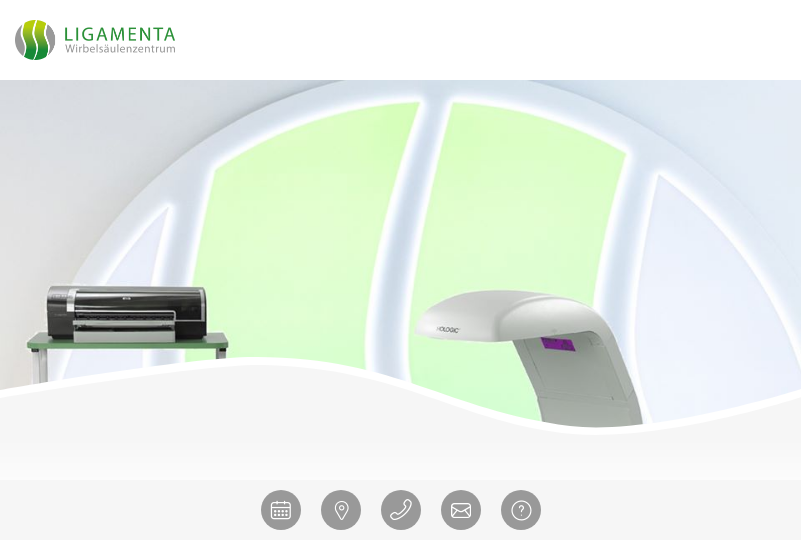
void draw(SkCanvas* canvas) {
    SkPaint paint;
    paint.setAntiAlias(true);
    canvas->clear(0xFFFFFFFF);
    canvas->drawImageRect(SkImages::DeferredFromEncodedData(SkData::MakeFromFileName("img1.png")), SkRect::MakeXYWH(15, 20, 160, 40), SkSamplingOptions());
    canvas->drawImageRect(SkImages::DeferredFromEncodedData(SkData::MakeFromFileName("img2.png")), SkRect::MakeXYWH(0, 80, 801, 348), SkSamplingOptions());
    paint.setColor(0xFFFFFFFF);
    canvas->drawPath(SkPathBuilder().moveTo(262, 368).cubicTo(199, 367, 0, 401, 0, 401).lineTo(0, 390).cubicTo(0, 390, 193, 356, 257, 357).cubicTo(399, 358, 445, 410, 570, 426).cubicTo(655, 436, 801, 389, 801, 389).lineTo(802, 400).cubicTo(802, 400, 666, 445, 571, 437).cubicTo(462, 428, 403, 371, 262, 368).close().detach(), paint);
    paint.setColor(0xFFF6F6F6);
    canvas->drawPath(SkPathBuilder().moveTo(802, 397).lineTo(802, 441).lineTo(0, 441).lineTo(0, 398).cubicTo(0, 398, 199, 364, 263, 365).cubicTo(403, 368, 462, 424, 572, 434).cubicTo(666, 442, 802, 397, 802, 397).close().detach(), paint);
    {
        const SkColor colors[] = {0xFFFFFFFF, 0xFFF6F6F6};
        const float stops[] = {0, 1};
        const SkPoint ends[] = {{401, 500}, {401, 440}};
        paint.setShader(SkGradientShader::MakeLinear(ends, colors, stops, 2, SkTileMode::kClamp));
        paint.setAlpha(255);
    }
    canvas->drawRect(SkRect::MakeXYWH(0, 441, 801, 39), paint);
    paint.setShader(nullptr);
    paint.setColor(0xFFF6F6F6);
    canvas->drawRect(SkRect::MakeXYWH(0, 480, 801, 60), paint);
    paint.setColor(0xFF999999);
    canvas->drawCircle(281, 510, 20, paint);
    canvas->drawImageRect(SkImages::DeferredFromEncodedData(SkData::MakeFromFileName("img3.png")), SkRect::MakeXYWH(270, 500, 21, 20), SkSamplingOptions());
    canvas->drawCircle(341, 510, 20, paint);
    canvas->drawImageRect(SkImages::DeferredFromEncodedData(SkData::MakeFromFileName("img4.png")), SkRect::MakeXYWH(334, 501, 15, 19), SkSamplingOptions());
    canvas->drawCircle(401, 510, 20, paint);
    canvas->drawImageRect(SkImages::DeferredFromEncodedData(SkData::MakeFromFileName("img5.png")), SkRect::MakeXYWH(390, 499, 22, 21), SkSamplingOptions());
    canvas->drawCircle(461, 510, 20, paint);
    canvas->drawImageRect(SkImages::DeferredFromEncodedData(SkData::MakeFromFileName("img6.png")), SkRect::MakeXYWH(451, 503, 20, 15), SkSamplingOptions());
    canvas->drawCircle(521, 510, 20, paint);
    canvas->drawImageRect(SkImages::DeferredFromEncodedData(SkData::MakeFromFileName("img7.png")), SkRect::MakeXYWH(511, 500, 21, 21), SkSamplingOptions());
}
